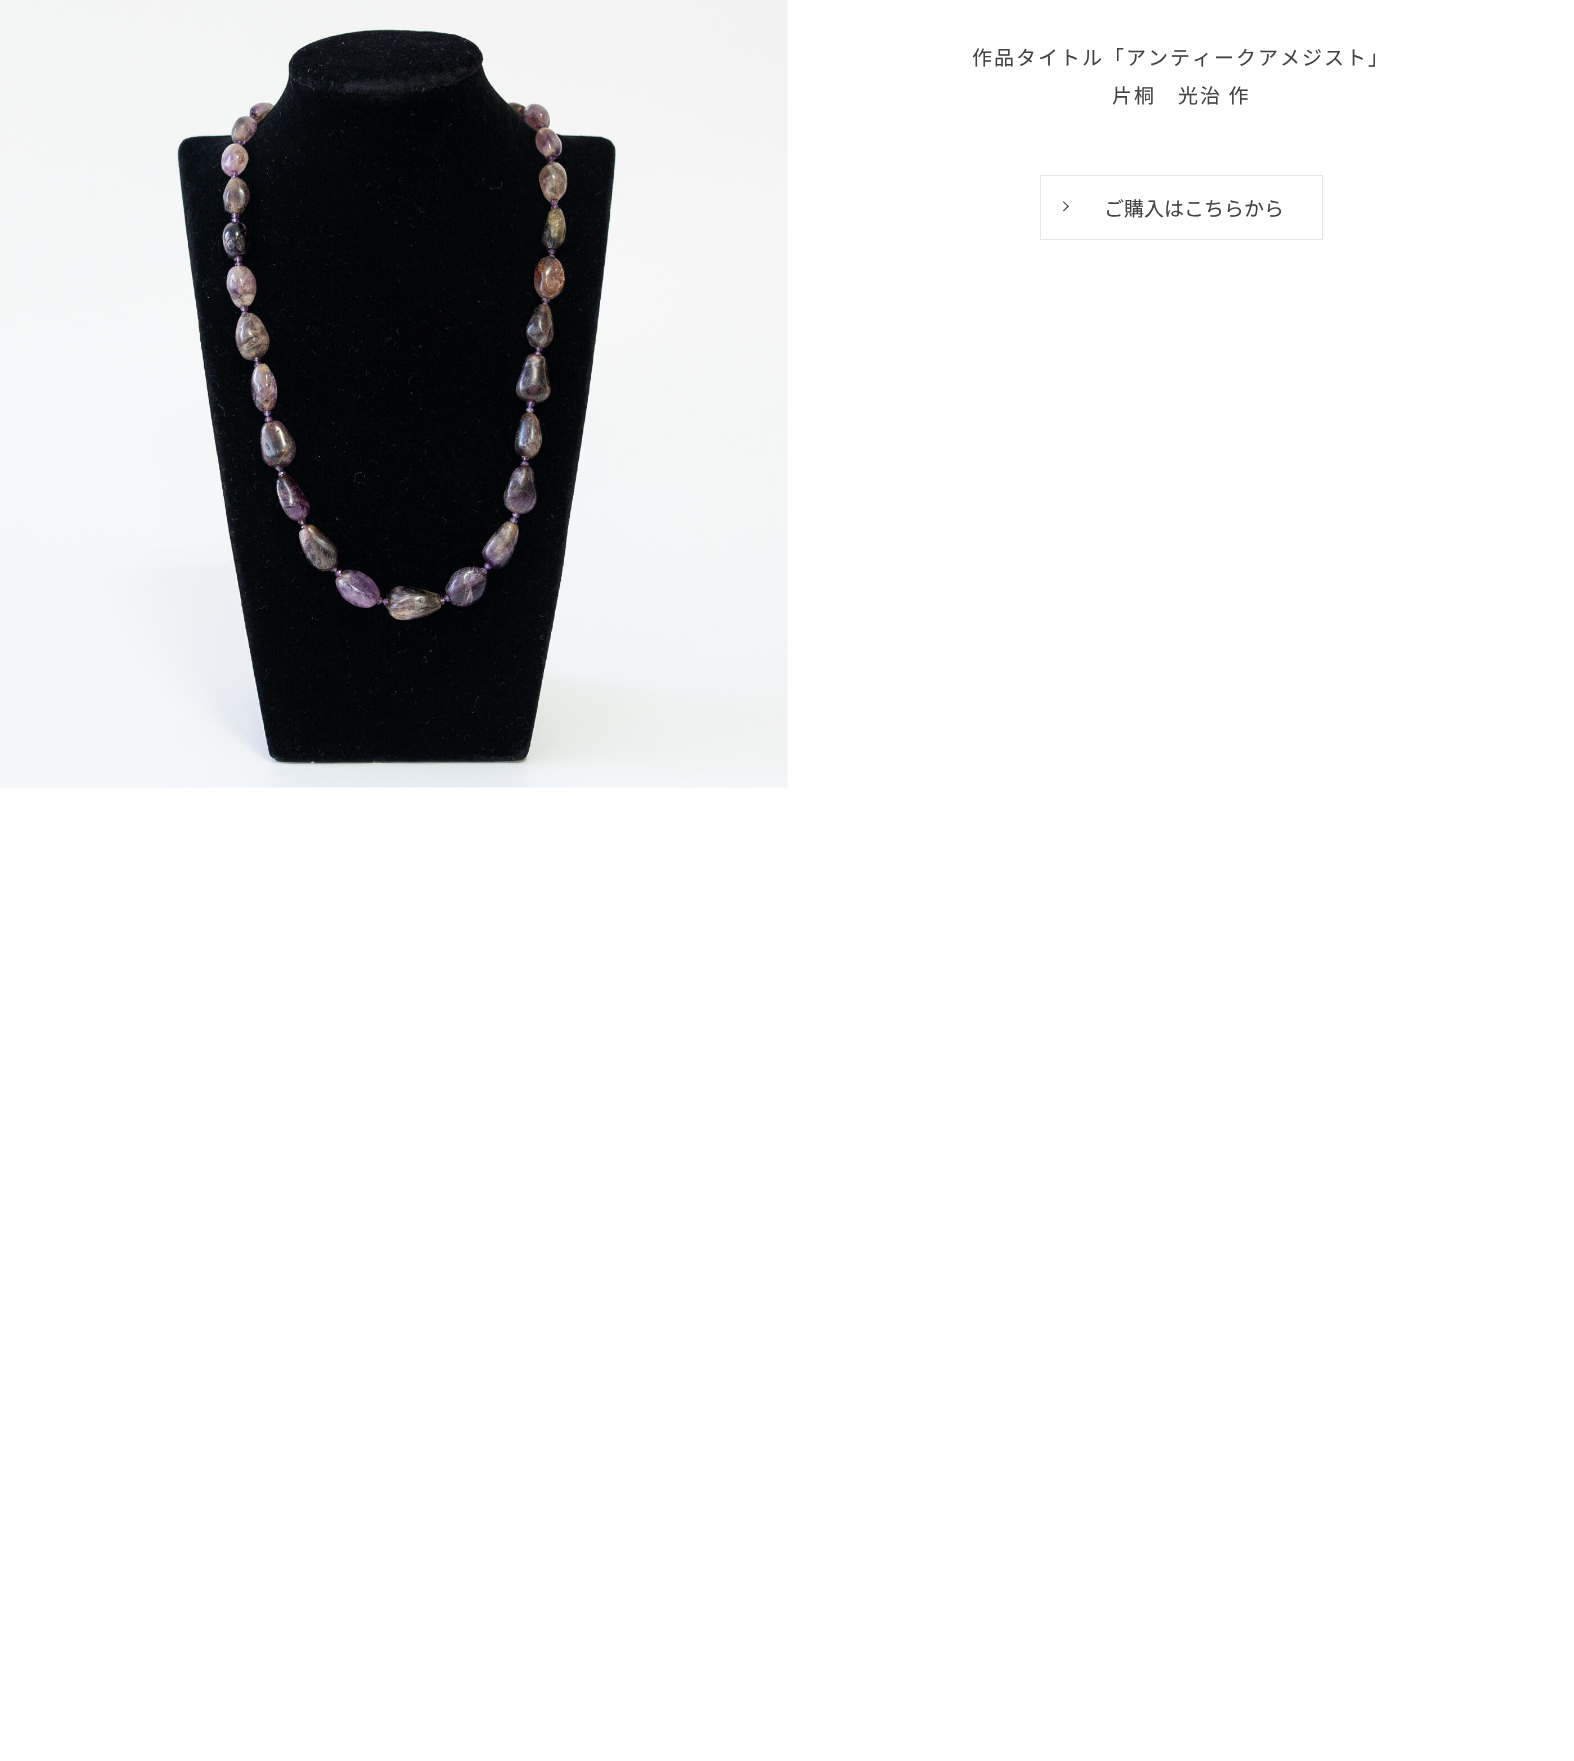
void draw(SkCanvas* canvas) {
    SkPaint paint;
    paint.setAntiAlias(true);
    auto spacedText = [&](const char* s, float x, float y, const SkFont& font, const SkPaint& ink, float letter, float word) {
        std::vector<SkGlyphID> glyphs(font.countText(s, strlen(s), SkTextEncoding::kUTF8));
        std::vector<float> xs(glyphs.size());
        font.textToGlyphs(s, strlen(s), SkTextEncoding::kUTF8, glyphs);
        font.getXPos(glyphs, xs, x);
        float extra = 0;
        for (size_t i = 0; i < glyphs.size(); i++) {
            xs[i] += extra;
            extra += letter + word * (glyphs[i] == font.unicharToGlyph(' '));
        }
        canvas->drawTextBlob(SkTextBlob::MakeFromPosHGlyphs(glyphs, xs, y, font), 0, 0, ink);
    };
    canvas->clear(0xFFFFFFFF);
    canvas->drawImageRect(SkImages::DeferredFromEncodedData(SkData::MakeFromFileName("img1.png")), SkRect::MakeXYWH(0, 0, 788, 788), SkSamplingOptions());
    SkFont font1(fontMgr->matchFamilyStyle("Noto Sans JP", SkFontStyle::Normal()), 20);
    font1.setSubpixel(true);
    paint.setColor(0xFF444444);
    spacedText("作品タイトル「アンティークアメジスト」", 972, 65, font1, paint, 2, 0);
    spacedText("片桐　光治 作", 1112, 103, font1, paint, 2, 0);
    paint.setStyle(SkPaint::kStroke_Style);
    paint.setStrokeWidth(1);
    paint.setColor(0xFFE6E6E6);
    canvas->drawRect(SkRect::MakeXYWH(1040.5f, 175.5f, 282, 64), paint);
    paint.setStyle(SkPaint::kFill_Style);
    paint.setColor(0xFF444444);
    canvas->drawPath(SkPathBuilder().moveTo(1063.5f, 201).lineTo(1069, 206.5f).lineTo(1068, 207).lineTo(1063, 202).close().detach(), paint);
    canvas->drawPath(SkPathBuilder().moveTo(1068, 205.5f).lineTo(1069, 206.5f).lineTo(1063.5f, 211.5f).lineTo(1063, 210.5f).close().detach(), paint);
    canvas->drawString("ご購入はこちらから", 1104, 216, font1, paint);
}
